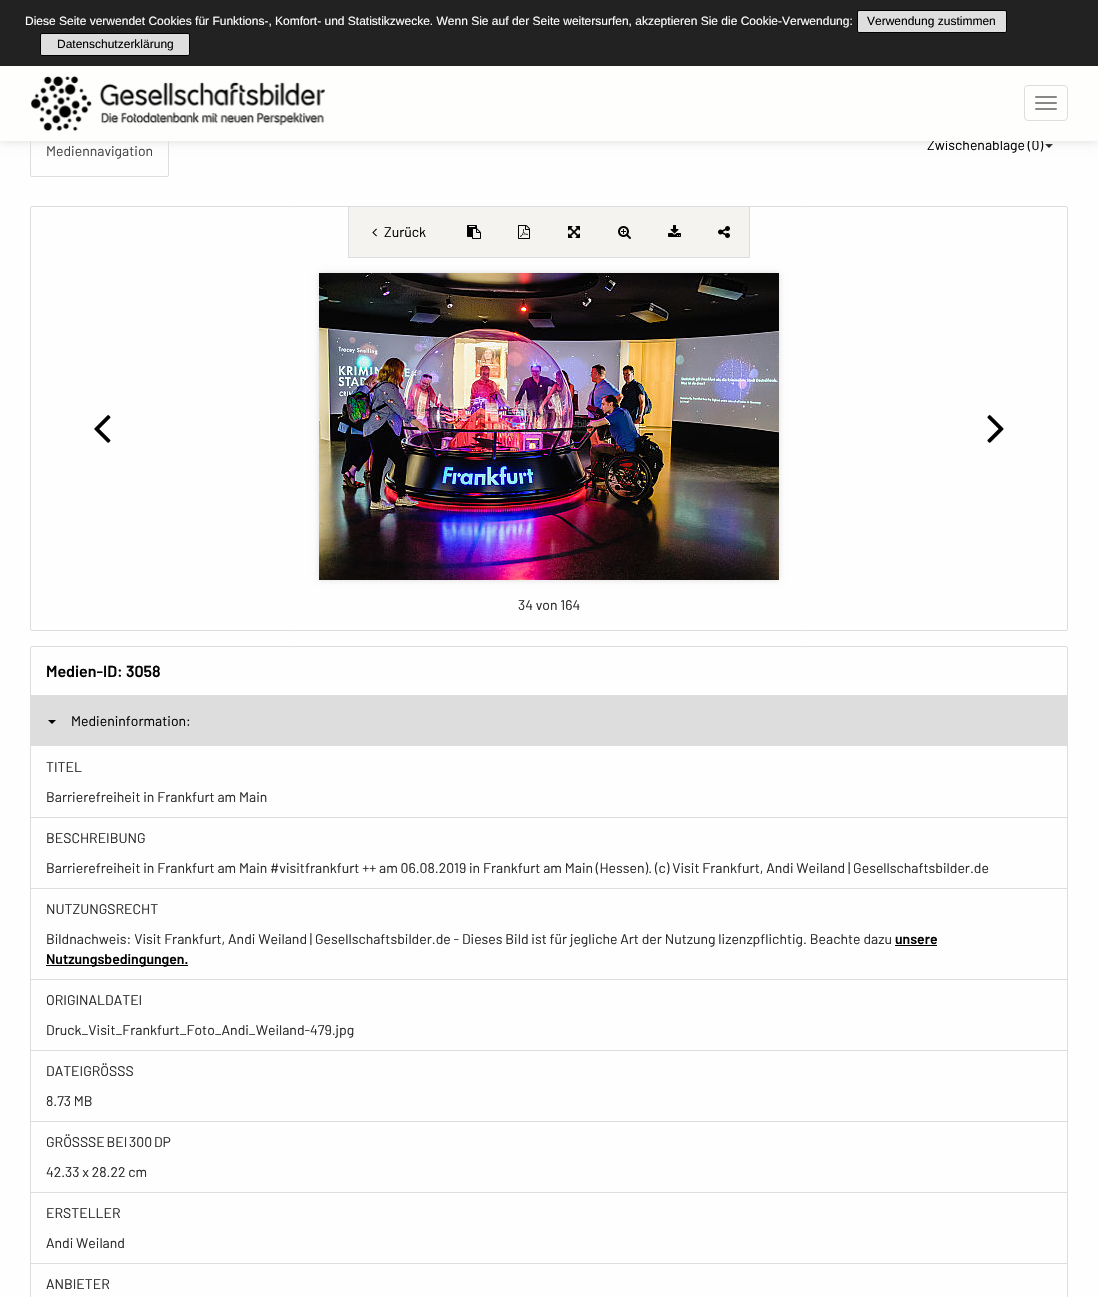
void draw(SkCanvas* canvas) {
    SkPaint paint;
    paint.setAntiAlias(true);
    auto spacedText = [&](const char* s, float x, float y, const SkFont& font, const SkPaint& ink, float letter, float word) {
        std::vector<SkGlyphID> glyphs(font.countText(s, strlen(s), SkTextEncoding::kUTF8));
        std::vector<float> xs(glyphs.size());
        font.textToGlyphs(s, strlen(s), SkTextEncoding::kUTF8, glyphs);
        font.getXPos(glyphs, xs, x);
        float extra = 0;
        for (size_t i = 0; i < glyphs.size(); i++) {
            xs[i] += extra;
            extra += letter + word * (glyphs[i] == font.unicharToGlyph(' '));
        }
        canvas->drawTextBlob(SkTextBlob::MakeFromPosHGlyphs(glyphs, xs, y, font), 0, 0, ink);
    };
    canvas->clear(0xFFFEFEFE);
    paint.setStyle(SkPaint::kStroke_Style);
    paint.setStrokeWidth(1);
    paint.setColor(0xFFDDDDDD);
    canvas->drawRoundRect(SkRect::MakeXYWH(30.5f, 125.5f, 138, 51), 1.5f, 1.5f, paint);
    paint.setStyle(SkPaint::kFill_Style);
    paint.setColor(0xFF010101);
    canvas->drawPath(SkPathBuilder().moveTo(1045, 144).lineTo(1053, 144).lineTo(1049, 148).close().detach(), paint);
    paint.setColor(0xFFDDDDDD);
    paint.setMaskFilter(SkMaskFilter::MakeBlur(kNormal_SkBlurStyle, 5));
    canvas->drawRect(SkRect::MakeXYWH(0, 66, 1098, 75), paint);
    paint.setMaskFilter(nullptr);
    paint.setColor(0xFF222222);
    canvas->drawRect(SkRect::MakeXYWH(0, 0, 1098, 66), paint);
    SkFont font1(fontMgr->matchFamilyStyle("Liberation Sans", SkFontStyle::Normal()), 12);
    font1.setSubpixel(true);
    paint.setColor(0xFFFFFFFF);
    canvas->drawString("Diese Seite verwendet Cookies für Funktions-, Komfort- und Statistikzwecke. Wenn Sie auf der Seite weitersurfen, akzeptieren Sie die Cookie-Verwendung:", 25, 25, font1, paint);
    paint.setColor(0xFFDEDEDE);
    canvas->drawRoundRect(SkRect::MakeXYWH(857.5f, 10.5f, 149, 22), 1.5f, 1.5f, paint);
    paint.setStyle(SkPaint::kStroke_Style);
    paint.setColor(0xFF010101);
    canvas->drawRoundRect(SkRect::MakeXYWH(857.5f, 10.5f, 149, 22), 1.5f, 1.5f, paint);
    paint.setStyle(SkPaint::kFill_Style);
    canvas->drawString("Verwendung zustimmen", 867, 25, font1, paint);
    paint.setColor(0xFFDEDEDE);
    canvas->drawRoundRect(SkRect::MakeXYWH(40.5f, 33.5f, 149, 22), 1.5f, 1.5f, paint);
    paint.setStyle(SkPaint::kStroke_Style);
    paint.setColor(0xFF010101);
    canvas->drawRoundRect(SkRect::MakeXYWH(40.5f, 33.5f, 149, 22), 1.5f, 1.5f, paint);
    paint.setStyle(SkPaint::kFill_Style);
    canvas->drawString("Datenschutzerklärung", 57, 48, font1, paint);
    SkFont font2(fontMgr->matchFamilyStyle("Barlow", SkFontStyle::Normal()), 14);
    font2.setSubpixel(true);
    canvas->drawString("Zwischenablage (0)", 927, 150, font2, paint);
    paint.setColor(0xFFFEFEFD);
    canvas->drawRect(SkRect::MakeXYWH(0, 66, 1098, 75), paint);
    canvas->drawImageRect(SkImages::DeferredFromEncodedData(SkData::MakeFromFileName("img1.png")), SkRect::MakeXYWH(31, 76, 294, 55), SkSamplingOptions());
    paint.setStyle(SkPaint::kStroke_Style);
    paint.setColor(0xFFDDDDDD);
    canvas->drawRoundRect(SkRect::MakeXYWH(1024.5f, 85.5f, 43, 35), 3.5f, 3.5f, paint);
    paint.setStyle(SkPaint::kFill_Style);
    paint.setColor(0xFF888888);
    canvas->drawRoundRect(SkRect::MakeXYWH(1035, 96, 22, 2), 1, 1, paint);
    canvas->drawRoundRect(SkRect::MakeXYWH(1035, 102, 22, 2), 1, 1, paint);
    canvas->drawRoundRect(SkRect::MakeXYWH(1035, 108, 22, 2), 1, 1, paint);
    paint.setColor(0xFF444444);
    canvas->drawString("Mediennavigation", 46, 156, font2, paint);
    paint.setStyle(SkPaint::kStroke_Style);
    paint.setColor(0xFFDDDDDD);
    canvas->drawRoundRect(SkRect::MakeXYWH(30.5f, 206.5f, 1037, 424), 1.5f, 1.5f, paint);
    paint.setStyle(SkPaint::kFill_Style);
    paint.setColor(0xFFF4F3F0);
    canvas->drawRect(SkRect::MakeXYWH(349, 207, 400, 50), paint);
    paint.setColor(0xFFDDDDDD);
    canvas->drawRect(SkRect::MakeXYWH(749, 207, 1, 51), paint);
    canvas->drawRect(SkRect::MakeXYWH(348, 257, 402, 1), paint);
    canvas->drawRect(SkRect::MakeXYWH(348, 207, 1, 51), paint);
    canvas->drawImageRect(SkImages::DeferredFromEncodedData(SkData::MakeFromFileName("img2.png")), SkRect::MakeXYWH(372, 228, 5, 9), SkSamplingOptions());
    paint.setColor(0xFF010101);
    canvas->drawString("Zurück", 384, 237, font2, paint);
    canvas->drawImageRect(SkImages::DeferredFromEncodedData(SkData::MakeFromFileName("img3.png")), SkRect::MakeXYWH(467, 225, 14, 14), SkSamplingOptions());
    canvas->drawImageRect(SkImages::DeferredFromEncodedData(SkData::MakeFromFileName("img4.png")), SkRect::MakeXYWH(518, 225, 12, 14), SkSamplingOptions());
    canvas->drawImageRect(SkImages::DeferredFromEncodedData(SkData::MakeFromFileName("img5.png")), SkRect::MakeXYWH(568, 226, 12, 12), SkSamplingOptions());
    canvas->drawImageRect(SkImages::DeferredFromEncodedData(SkData::MakeFromFileName("img6.png")), SkRect::MakeXYWH(618, 226, 13, 13), SkSamplingOptions());
    canvas->drawImageRect(SkImages::DeferredFromEncodedData(SkData::MakeFromFileName("img7.png")), SkRect::MakeXYWH(668, 225, 13, 12), SkSamplingOptions());
    canvas->drawImageRect(SkImages::DeferredFromEncodedData(SkData::MakeFromFileName("img8.png")), SkRect::MakeXYWH(718, 226, 12, 12), SkSamplingOptions());
    canvas->drawImageRect(SkImages::DeferredFromEncodedData(SkData::MakeFromFileName("img9.png")), SkRect::MakeXYWH(94, 415, 17, 28), SkSamplingOptions());
    paint.setColor(0xFFDDDDDD);
    paint.setMaskFilter(SkMaskFilter::MakeBlur(kNormal_SkBlurStyle, 3));
    canvas->drawRect(SkRect::MakeXYWH(319, 273, 460, 307), paint);
    paint.setMaskFilter(nullptr);
    canvas->drawImageRect(SkImages::DeferredFromEncodedData(SkData::MakeFromFileName("img10.png")), SkRect::MakeXYWH(319, 273, 460, 307), SkSamplingOptions());
    canvas->drawImageRect(SkImages::DeferredFromEncodedData(SkData::MakeFromFileName("img11.png")), SkRect::MakeXYWH(987, 415, 17, 28), SkSamplingOptions());
    paint.setColor(0xFF292929);
    canvas->drawString("34 von 164", 518, 610, font2, paint);
    paint.setStyle(SkPaint::kStroke_Style);
    paint.setColor(0xFFDDDDDD);
    canvas->drawRoundRect(SkRect::MakeXYWH(30.5f, 646.5f, 1037, 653), 1.5f, 1.5f, paint);
    SkFont font3(fontMgr->matchFamilyStyle("Barlow", SkFontStyle(600, SkFontStyle::kNormal_Width, SkFontStyle::kUpright_Slant)), 16);
    font3.setSubpixel(true);
    paint.setStyle(SkPaint::kFill_Style);
    paint.setColor(0xFF010101);
    canvas->drawString("Medien-ID: 3058", 46, 677, font3, paint);
    paint.setColor(0xFFDDDDDD);
    canvas->drawRect(SkRect::MakeXYWH(31, 695, 1036, 51), paint);
    paint.setColor(0xFF000000);
    canvas->drawPath(SkPathBuilder().moveTo(48, 720).lineTo(56, 720).lineTo(52, 724).close().detach(), paint);
    paint.setColor(0xFF010101);
    canvas->drawString("Medieninformation:", 71, 726, font2, paint);
    paint.setColor(0xFFDDDDDD);
    canvas->drawRect(SkRect::MakeXYWH(31, 817, 1036, 1), paint);
    paint.setColor(0xFF292929);
    canvas->drawString("TITEL", 46, 772, font2, paint);
    canvas->drawString("Barrierefreiheit in Frankfurt am Main", 46, 802, font2, paint);
    paint.setColor(0xFFDDDDDD);
    canvas->drawRect(SkRect::MakeXYWH(31, 888, 1036, 1), paint);
    paint.setColor(0xFF292929);
    canvas->drawString("BESCHREIBUNG", 46, 843, font2, paint);
    canvas->drawString("Barrierefreiheit in Frankfurt am Main #visitfrankfurt ++ am 06.08.2019 in Frankfurt am Main (Hessen). (c) Visit Frankfurt, Andi Weiland | Gesellschaftsbilder.de", 46, 873, font2, paint);
    paint.setColor(0xFFDDDDDD);
    canvas->drawRect(SkRect::MakeXYWH(31, 979, 1036, 1), paint);
    paint.setColor(0xFF292929);
    canvas->drawString("NUTZUNGSRECHT", 46, 914, font2, paint);
    canvas->drawString("Bildnachweis: Visit Frankfurt, Andi Weiland | Gesellschaftsbilder.de - Dieses Bild ist für jegliche Art der Nutzung lizenzpflichtig. Beachte dazu", 46, 944, font2, paint);
    SkFont font4(fontMgr->matchFamilyStyle("Barlow", SkFontStyle(600, SkFontStyle::kNormal_Width, SkFontStyle::kUpright_Slant)), 14);
    font4.setSubpixel(true);
    paint.setColor(0xFF010101);
    canvas->drawString("unsere", 895, 944, font4, paint);
    canvas->drawRect(SkRect::MakeXYWH(895, 945, 42, 1), paint);
    canvas->drawRect(SkRect::MakeXYWH(46, 965, 142, 1), paint);
    canvas->drawString("Nutzungsbedingungen.", 46, 964, font4, paint);
    paint.setColor(0xFFDDDDDD);
    canvas->drawRect(SkRect::MakeXYWH(31, 1050, 1036, 1), paint);
    paint.setColor(0xFF292929);
    canvas->drawString("ORIGINALDATEI", 46, 1005, font2, paint);
    canvas->drawString("Druck_Visit_Frankfurt_Foto_Andi_Weiland-479.jpg", 46, 1035, font2, paint);
    paint.setColor(0xFFDDDDDD);
    canvas->drawRect(SkRect::MakeXYWH(31, 1121, 1036, 1), paint);
    paint.setColor(0xFF292929);
    canvas->drawString("DATEIGRÖSSS", 46, 1076, font2, paint);
    canvas->drawString("8.73 MB", 46, 1106, font2, paint);
    paint.setColor(0xFFDDDDDD);
    canvas->drawRect(SkRect::MakeXYWH(31, 1192, 1036, 1), paint);
    paint.setColor(0xFF292929);
    canvas->drawString("GRÖSS", 46, 1147, font2, paint);
    spacedText("SE BEI 300 DP", 88, 1147, font2, paint, 0, -1);
    canvas->drawString("42.33 x 28.22 cm", 46, 1177, font2, paint);
    paint.setColor(0xFFDDDDDD);
    canvas->drawRect(SkRect::MakeXYWH(31, 1263, 1036, 1), paint);
    paint.setColor(0xFF292929);
    canvas->drawString("ERSTELLER", 46, 1218, font2, paint);
    canvas->drawString("Andi Weiland", 46, 1248, font2, paint);
    canvas->drawString("ANBIETER", 46, 1289, font2, paint);
}
